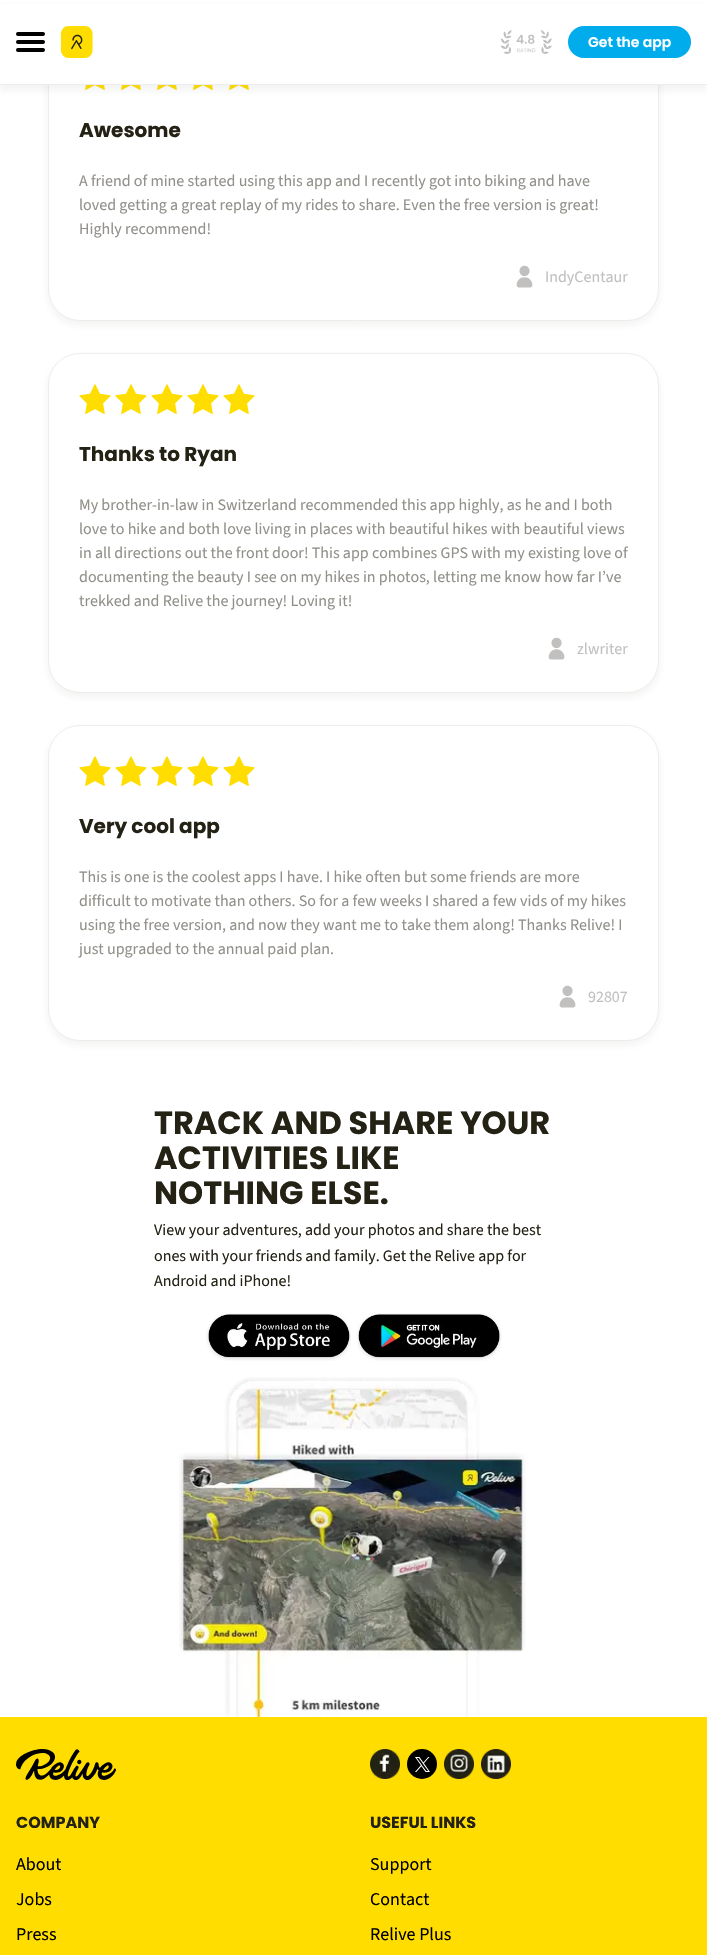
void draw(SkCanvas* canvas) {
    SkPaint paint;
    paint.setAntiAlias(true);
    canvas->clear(0xFFFFFFFF);
    paint.setColor(0x0F242115);
    paint.setMaskFilter(SkMaskFilter::MakeBlur(kNormal_SkBlurStyle, 4));
    canvas->drawRoundRect(SkRect::MakeXYWH(48, 33, 611, 292), 32, 32, paint);
    paint.setMaskFilter(nullptr);
    paint.setColor(0xFFFFFFFF);
    canvas->drawRoundRect(SkRect::MakeXYWH(48.5f, 29.5f, 610, 291), 31.5f, 31.5f, paint);
    paint.setStyle(SkPaint::kStroke_Style);
    paint.setStrokeWidth(1);
    paint.setColor(0xFFEEEDED);
    canvas->drawRoundRect(SkRect::MakeXYWH(48.5f, 29.5f, 610, 291), 31.5f, 31.5f, paint);
    canvas->drawImageRect(SkImages::DeferredFromEncodedData(SkData::MakeFromFileName("img3.png")), SkRect::MakeXYWH(85, 85, 20, 5), SkSamplingOptions());
    canvas->drawImageRect(SkImages::DeferredFromEncodedData(SkData::MakeFromFileName("img3.png")), SkRect::MakeXYWH(121, 85, 20, 5), SkSamplingOptions());
    canvas->drawImageRect(SkImages::DeferredFromEncodedData(SkData::MakeFromFileName("img3.png")), SkRect::MakeXYWH(157, 85, 20, 5), SkSamplingOptions());
    canvas->drawImageRect(SkImages::DeferredFromEncodedData(SkData::MakeFromFileName("img3.png")), SkRect::MakeXYWH(193, 85, 20, 5), SkSamplingOptions());
    canvas->drawImageRect(SkImages::DeferredFromEncodedData(SkData::MakeFromFileName("img3.png")), SkRect::MakeXYWH(229, 85, 20, 5), SkSamplingOptions());
    paint.setStyle(SkPaint::kFill_Style);
    paint.setColor(0x14727171);
    paint.setMaskFilter(SkMaskFilter::MakeBlur(kNormal_SkBlurStyle, 3));
    canvas->drawRect(SkRect::MakeXYWH(0, 6, 707, 85), paint);
    paint.setMaskFilter(nullptr);
    paint.setColor(0xFFFFFFFF);
    canvas->drawRect(SkRect::MakeXYWH(0, 4, 707, 80), paint);
    paint.setColor(0xFFEEEDED);
    canvas->drawRect(SkRect::MakeXYWH(0, 84, 707, 1), paint);
    paint.setColor(0xFF000000);
    canvas->drawRoundRect(SkRect::MakeXYWH(16, 32, 29, 4), 2, 2, paint);
    canvas->drawRoundRect(SkRect::MakeXYWH(16, 40, 29, 4), 2, 2, paint);
    canvas->drawRoundRect(SkRect::MakeXYWH(16, 48, 29, 4), 2, 2, paint);
    canvas->drawImageRect(SkImages::DeferredFromEncodedData(SkData::MakeFromFileName("img1.png")), SkRect::MakeXYWH(61, 26, 32, 32), SkSamplingOptions());
    canvas->drawImageRect(SkImages::DeferredFromEncodedData(SkData::MakeFromFileName("img2.png")), SkRect::MakeXYWH(500, 30, 52, 24), SkSamplingOptions());
    paint.setColor(0xFF00ACEB);
    canvas->drawRoundRect(SkRect::MakeXYWH(568, 26, 123, 32), 16, 16, paint);
    SkFont font1(fontMgr->matchFamilyStyle("Poppins", SkFontStyle(600, SkFontStyle::kNormal_Width, SkFontStyle::kUpright_Slant)), 14);
    font1.setSubpixel(true);
    paint.setColor(0xFFFFFFFF);
    canvas->drawString("Get the app", 588, 47, font1, paint);
    SkFont font2(fontMgr->matchFamilyStyle("Poppins", SkFontStyle::Bold()), 20);
    font2.setSubpixel(true);
    paint.setColor(0xFF242115);
    canvas->drawString("Awesome", 79, 137, font2, paint);
    SkFont font3(fontMgr->matchFamilyStyle("Source Sans 3", SkFontStyle::Normal()), 16);
    font3.setSubpixel(true);
    paint.setColor(0xFF92908A);
    canvas->drawString("A friend of mine started using this app and I recently got into biking and have", 79, 186, font3, paint);
    canvas->drawString("loved getting a great replay of my rides to share. Even the free version is great!", 79, 210, font3, paint);
    canvas->drawString("Highly recommend!", 79, 234, font3, paint);
    canvas->drawImageRect(SkImages::DeferredFromEncodedData(SkData::MakeFromFileName("img4.png")), SkRect::MakeXYWH(516, 265, 17, 23), SkSamplingOptions());
    paint.setColor(0xFFC2BFBF);
    canvas->drawString("IndyCentaur", 545, 282, font3, paint);
    paint.setColor(0x0F242115);
    paint.setMaskFilter(SkMaskFilter::MakeBlur(kNormal_SkBlurStyle, 4));
    canvas->drawRoundRect(SkRect::MakeXYWH(48, 357, 611, 340), 32, 32, paint);
    paint.setMaskFilter(nullptr);
    paint.setColor(0xFFFFFFFF);
    canvas->drawRoundRect(SkRect::MakeXYWH(48.5f, 353.5f, 610, 339), 31.5f, 31.5f, paint);
    paint.setStyle(SkPaint::kStroke_Style);
    paint.setColor(0xFFEEEDED);
    canvas->drawRoundRect(SkRect::MakeXYWH(48.5f, 353.5f, 610, 339), 31.5f, 31.5f, paint);
    canvas->drawImageRect(SkImages::DeferredFromEncodedData(SkData::MakeFromFileName("img5.png")), SkRect::MakeXYWH(79, 384, 32, 30), SkSamplingOptions());
    canvas->drawImageRect(SkImages::DeferredFromEncodedData(SkData::MakeFromFileName("img5.png")), SkRect::MakeXYWH(115, 384, 32, 30), SkSamplingOptions());
    canvas->drawImageRect(SkImages::DeferredFromEncodedData(SkData::MakeFromFileName("img5.png")), SkRect::MakeXYWH(151, 384, 32, 30), SkSamplingOptions());
    canvas->drawImageRect(SkImages::DeferredFromEncodedData(SkData::MakeFromFileName("img5.png")), SkRect::MakeXYWH(187, 384, 32, 30), SkSamplingOptions());
    canvas->drawImageRect(SkImages::DeferredFromEncodedData(SkData::MakeFromFileName("img5.png")), SkRect::MakeXYWH(223, 384, 32, 30), SkSamplingOptions());
    paint.setStyle(SkPaint::kFill_Style);
    paint.setColor(0xFF242115);
    canvas->drawString("Thanks to Ryan", 79, 461, font2, paint);
    paint.setColor(0xFF92908A);
    canvas->drawString("My brother-in-law in Switzerland recommended this app highly, as he and I both", 79, 510, font3, paint);
    canvas->drawString("love to hike and both love living in places with beautiful hikes with beautiful views", 79, 534, font3, paint);
    canvas->drawString("in all directions out the front door! This app combines GPS with my existing love of", 79, 558, font3, paint);
    canvas->drawString("documenting the beauty I see on my hikes in photos, letting me know how far I’ve", 79, 582, font3, paint);
    canvas->drawString("trekked and Relive the journey! Loving it!", 79, 606, font3, paint);
    canvas->drawImageRect(SkImages::DeferredFromEncodedData(SkData::MakeFromFileName("img6.png")), SkRect::MakeXYWH(548, 637, 17, 23), SkSamplingOptions());
    paint.setColor(0xFFC2BFBF);
    canvas->drawString("zlwriter", 577, 654, font3, paint);
    paint.setColor(0x0F242115);
    paint.setMaskFilter(SkMaskFilter::MakeBlur(kNormal_SkBlurStyle, 4));
    canvas->drawRoundRect(SkRect::MakeXYWH(48, 729, 611, 316), 32, 32, paint);
    paint.setMaskFilter(nullptr);
    paint.setColor(0xFFFFFFFF);
    canvas->drawRoundRect(SkRect::MakeXYWH(48.5f, 725.5f, 610, 315), 31.5f, 31.5f, paint);
    paint.setStyle(SkPaint::kStroke_Style);
    paint.setColor(0xFFEEEDED);
    canvas->drawRoundRect(SkRect::MakeXYWH(48.5f, 725.5f, 610, 315), 31.5f, 31.5f, paint);
    canvas->drawImageRect(SkImages::DeferredFromEncodedData(SkData::MakeFromFileName("img7.png")), SkRect::MakeXYWH(79, 756, 32, 30), SkSamplingOptions());
    canvas->drawImageRect(SkImages::DeferredFromEncodedData(SkData::MakeFromFileName("img7.png")), SkRect::MakeXYWH(115, 756, 32, 30), SkSamplingOptions());
    canvas->drawImageRect(SkImages::DeferredFromEncodedData(SkData::MakeFromFileName("img7.png")), SkRect::MakeXYWH(151, 756, 32, 30), SkSamplingOptions());
    canvas->drawImageRect(SkImages::DeferredFromEncodedData(SkData::MakeFromFileName("img7.png")), SkRect::MakeXYWH(187, 756, 32, 30), SkSamplingOptions());
    canvas->drawImageRect(SkImages::DeferredFromEncodedData(SkData::MakeFromFileName("img7.png")), SkRect::MakeXYWH(223, 756, 32, 30), SkSamplingOptions());
    paint.setStyle(SkPaint::kFill_Style);
    paint.setColor(0xFF242115);
    canvas->drawString("Very cool app", 79, 833, font2, paint);
    paint.setColor(0xFF92908A);
    canvas->drawString("This is one is the coolest apps I have. I hike often but some friends are more", 79, 882, font3, paint);
    canvas->drawString("difficult to motivate than others. So for a few weeks I shared a few vids of my hikes", 79, 906, font3, paint);
    canvas->drawString("using the free version, and now they want me to take them along! Thanks Relive! I", 79, 930, font3, paint);
    canvas->drawString("just upgraded to the annual paid plan.", 79, 954, font3, paint);
    canvas->drawImageRect(SkImages::DeferredFromEncodedData(SkData::MakeFromFileName("img8.png")), SkRect::MakeXYWH(559, 985, 17, 23), SkSamplingOptions());
    paint.setColor(0xFFC2BFBF);
    canvas->drawString("92807", 588, 1002, font3, paint);
    SkFont font4(fontMgr->matchFamilyStyle("Poppins", SkFontStyle::Bold()), 32);
    font4.setSubpixel(true);
    paint.setColor(0xFF242115);
    canvas->drawString("TRACK AND SHARE YOUR", 154, 1134, font4, paint);
    canvas->drawString("ACTIVITIES LIKE", 154, 1169, font4, paint);
    canvas->drawString("NOTHING ELSE.", 154, 1204, font4, paint);
    canvas->drawString("View your adventures, add your photos and share the best", 154, 1235, font3, paint);
    canvas->drawString("ones with your friends and family. Get the Relive app for", 154, 1261, font3, paint);
    canvas->drawString("Android and iPhone!", 154, 1286, font3, paint);
    canvas->drawImageRect(SkImages::DeferredFromEncodedData(SkData::MakeFromFileName("img9.png")), SkRect::MakeXYWH(206, 1313, 145, 48), SkSamplingOptions());
    canvas->drawImageRect(SkImages::DeferredFromEncodedData(SkData::MakeFromFileName("img10.png")), SkRect::MakeXYWH(357, 1313, 145, 48), SkSamplingOptions());
    canvas->drawImageRect(SkImages::DeferredFromEncodedData(SkData::MakeFromFileName("img11.png")), SkRect::MakeXYWH(179, 1377, 347, 340), SkSamplingOptions());
    paint.setColor(0xFFFFDD00);
    canvas->drawRect(SkRect::MakeXYWH(0, 1717, 707, 238), paint);
    canvas->drawImageRect(SkImages::DeferredFromEncodedData(SkData::MakeFromFileName("img12.png")), SkRect::MakeXYWH(16, 1749, 100, 31), SkSamplingOptions());
    canvas->drawImageRect(SkImages::DeferredFromEncodedData(SkData::MakeFromFileName("img13.png")), SkRect::MakeXYWH(370, 1749, 30, 30), SkSamplingOptions());
    canvas->drawImageRect(SkImages::DeferredFromEncodedData(SkData::MakeFromFileName("img14.png")), SkRect::MakeXYWH(407, 1749, 30, 30), SkSamplingOptions());
    canvas->drawImageRect(SkImages::DeferredFromEncodedData(SkData::MakeFromFileName("img15.png")), SkRect::MakeXYWH(444, 1749, 30, 30), SkSamplingOptions());
    canvas->drawImageRect(SkImages::DeferredFromEncodedData(SkData::MakeFromFileName("img16.png")), SkRect::MakeXYWH(481, 1749, 30, 30), SkSamplingOptions());
    SkFont font5(fontMgr->matchFamilyStyle("Poppins", SkFontStyle::Bold()), 16);
    font5.setSubpixel(true);
    paint.setColor(0xFF242115);
    canvas->drawString("COMPANY", 16, 1828, font5, paint);
    SkFont font6(fontMgr->matchFamilyStyle("Source Sans 3", SkFontStyle::Normal()), 18);
    font6.setSubpixel(true);
    paint.setColor(0xFF000000);
    canvas->drawString("About", 16, 1870, font6, paint);
    canvas->drawString("Jobs", 16, 1905, font6, paint);
    canvas->drawString("Press", 16, 1940, font6, paint);
    paint.setColor(0xFF242115);
    canvas->drawString("USEFUL LINKS", 370, 1828, font5, paint);
    paint.setColor(0xFF000000);
    canvas->drawString("Support", 370, 1870, font6, paint);
    canvas->drawString("Contact", 370, 1905, font6, paint);
    canvas->drawString("Relive Plus", 370, 1940, font6, paint);
}
